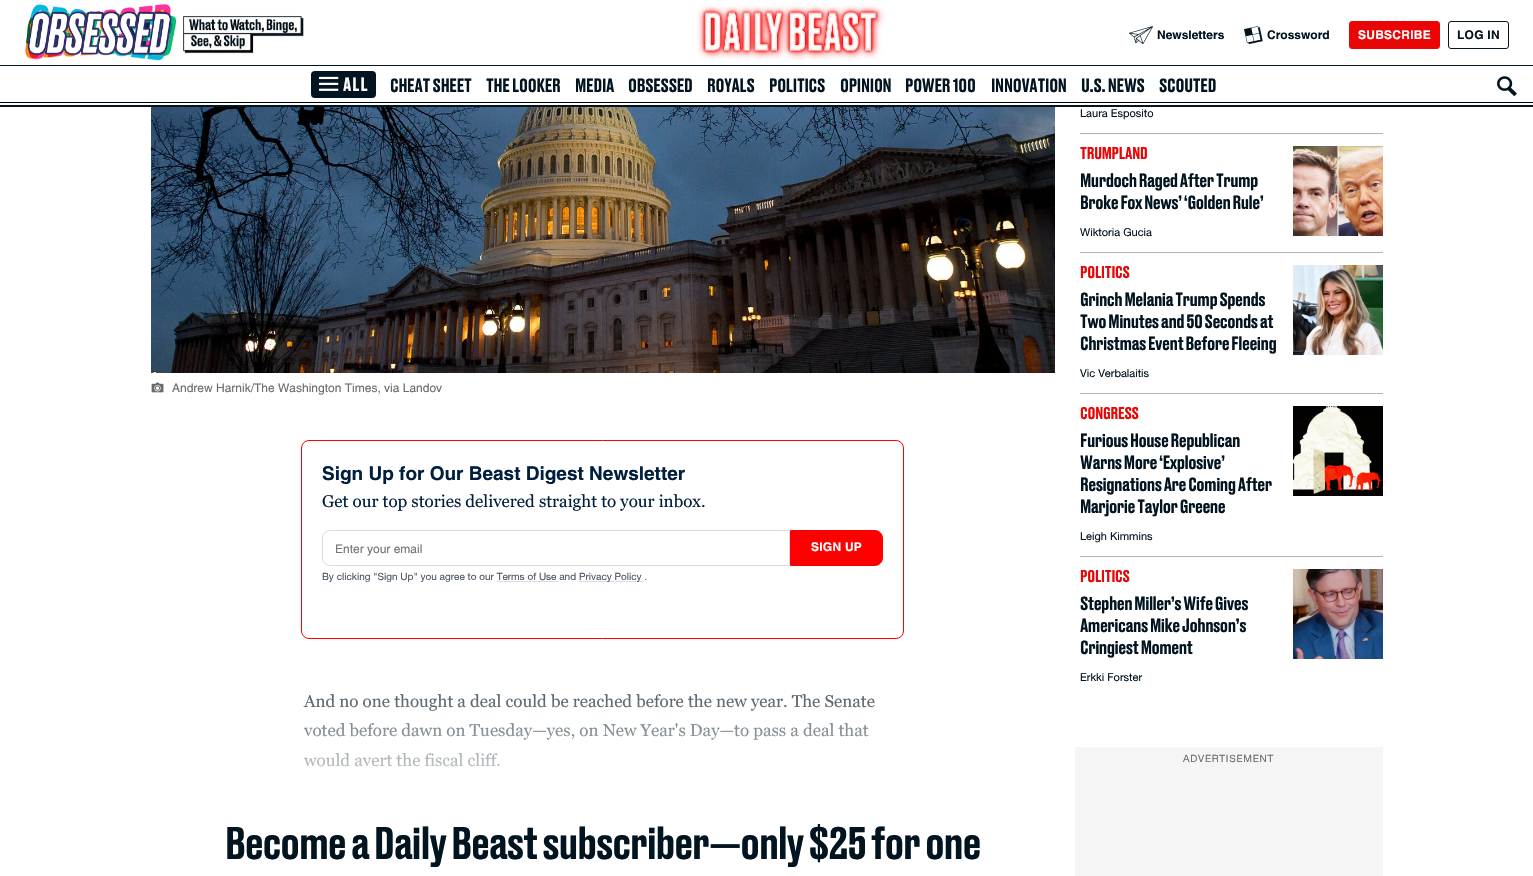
void draw(SkCanvas* canvas) {
    SkPaint paint;
    paint.setAntiAlias(true);
    auto spacedText = [&](const char* s, float x, float y, const SkFont& font, const SkPaint& ink, float letter, float word) {
        std::vector<SkGlyphID> glyphs(font.countText(s, strlen(s), SkTextEncoding::kUTF8));
        std::vector<float> xs(glyphs.size());
        font.textToGlyphs(s, strlen(s), SkTextEncoding::kUTF8, glyphs);
        font.getXPos(glyphs, xs, x);
        float extra = 0;
        for (size_t i = 0; i < glyphs.size(); i++) {
            xs[i] += extra;
            extra += letter + word * (glyphs[i] == font.unicharToGlyph(' '));
        }
        canvas->drawTextBlob(SkTextBlob::MakeFromPosHGlyphs(glyphs, xs, y, font), 0, 0, ink);
    };
    canvas->clear(0xFFFFFFFF);
    paint.setColor(0xFF02141F);
    canvas->drawRect(SkRect::MakeXYWH(0, 105, 1533, 2), paint);
    canvas->drawImageRect(SkImages::DeferredFromEncodedData(SkData::MakeFromFileName("img1.png")), SkRect::MakeXYWH(24, 4, 280, 57), SkSamplingOptions());
    canvas->drawImageRect(SkImages::DeferredFromEncodedData(SkData::MakeFromFileName("img2.png")), SkRect::MakeXYWH(697, 5, 188, 55), SkSamplingOptions());
    canvas->drawImageRect(SkImages::DeferredFromEncodedData(SkData::MakeFromFileName("img3.png")), SkRect::MakeXYWH(1129, 26, 24, 19), SkSamplingOptions());
    SkFont font1(fontMgr->matchFamilyStyle("Helvetica", SkFontStyle::Bold()), 12);
    font1.setSubpixel(true);
    canvas->drawString("Newsletters", 1157, 39, font1, paint);
    canvas->drawImageRect(SkImages::DeferredFromEncodedData(SkData::MakeFromFileName("img4.png")), SkRect::MakeXYWH(1244, 26, 19, 19), SkSamplingOptions());
    canvas->drawString("Crossword", 1267, 39, font1, paint);
    paint.setColor(0xFFEA0606);
    canvas->drawRoundRect(SkRect::MakeXYWH(1349.5f, 21.5f, 90, 27), 2.5f, 2.5f, paint);
    paint.setStyle(SkPaint::kStroke_Style);
    paint.setStrokeWidth(1);
    canvas->drawRoundRect(SkRect::MakeXYWH(1349.5f, 21.5f, 90, 27), 2.5f, 2.5f, paint);
    paint.setStyle(SkPaint::kFill_Style);
    paint.setColor(0xFFFFFFFF);
    spacedText("SUBSCRIBE", 1358, 39, font1, paint, 0.25f, 0);
    paint.setStyle(SkPaint::kStroke_Style);
    paint.setColor(0xFF02141F);
    canvas->drawRoundRect(SkRect::MakeXYWH(1448.5f, 21.5f, 60, 27), 2.5f, 2.5f, paint);
    paint.setStyle(SkPaint::kFill_Style);
    spacedText("LOG IN", 1457, 39, font1, paint, 0.25f, 0);
    canvas->drawRect(SkRect::MakeXYWH(0, 65, 1533, 1), paint);
    canvas->drawRoundRect(SkRect::MakeXYWH(311, 71, 65, 27), 4, 4, paint);
    canvas->drawImageRect(SkImages::DeferredFromEncodedData(SkData::MakeFromFileName("img5.png")), SkRect::MakeXYWH(319, 76, 20, 15), SkSamplingOptions());
    SkFont font2(fontMgr->matchFamilyStyle("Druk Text", SkFontStyle(500, SkFontStyle::kNormal_Width, SkFontStyle::kUpright_Slant)), 18);
    font2.setSubpixel(true);
    paint.setColor(0xFFFFFFFF);
    spacedText("ALL", 343, 91, font2, paint, 1, 0);
    paint.setColor(0xFF02141F);
    spacedText("CHEAT SHEET", 390, 92, font2, paint, -0.25f, 0);
    spacedText("THE LOOKER", 486, 92, font2, paint, -0.25f, 0);
    spacedText("MEDIA", 575, 92, font2, paint, -0.25f, 0);
    spacedText("OBSESSED", 628, 92, font2, paint, -0.25f, 0);
    spacedText("ROYALS", 707, 92, font2, paint, -0.25f, 0);
    spacedText("POLITICS", 769, 92, font2, paint, -0.25f, 0);
    spacedText("OPINION", 840, 92, font2, paint, -0.25f, 0);
    spacedText("POWER 100", 905, 92, font2, paint, -0.25f, 0);
    spacedText("INNOVATION", 991, 92, font2, paint, -0.25f, 0);
    spacedText("U.S. NEWS", 1081, 92, font2, paint, -0.25f, 0);
    spacedText("SCOUTED", 1159, 92, font2, paint, -0.25f, 0);
    canvas->drawImageRect(SkImages::DeferredFromEncodedData(SkData::MakeFromFileName("img6.png")), SkRect::MakeXYWH(1497, 76, 20, 21), SkSamplingOptions());
    paint.setColor(0xFF000000);
    canvas->drawRect(SkRect::MakeXYWH(0, 102, 1533, 1), paint);
    canvas->drawImageRect(SkImages::DeferredFromEncodedData(SkData::MakeFromFileName("img7.png")), SkRect::MakeXYWH(151, 107, 904, 266), SkSamplingOptions());
    canvas->drawImageRect(SkImages::DeferredFromEncodedData(SkData::MakeFromFileName("img8.png")), SkRect::MakeXYWH(151, 382, 13, 11), SkSamplingOptions());
    SkFont font3(fontMgr->matchFamilyStyle("Helvetica", SkFontStyle::Normal()), 12);
    font3.setSubpixel(true);
    paint.setColor(0xFF6C6C6C);
    canvas->drawString("Andrew Harnik/The Washington Times, via Landov", 172, 392, font3, paint);
    paint.setStyle(SkPaint::kStroke_Style);
    paint.setColor(0xFFFF0000);
    canvas->drawRoundRect(SkRect::MakeXYWH(301.5f, 440.5f, 602, 198), 7.5f, 7.5f, paint);
    SkFont font4(fontMgr->matchFamilyStyle("Helvetica", SkFontStyle::Bold()), 19);
    font4.setSubpixel(true);
    paint.setStyle(SkPaint::kFill_Style);
    paint.setColor(0xFF001F3F);
    canvas->drawString("Sign Up for Our Beast Digest Newsletter", 322, 480, font4, paint);
    SkFont font5(fontMgr->matchFamilyStyle("Georgia", SkFontStyle::Normal()), 17);
    font5.setSubpixel(true);
    canvas->drawString("Get our top stories delivered straight to your inbox.", 322, 507, font5, paint);
    paint.setStyle(SkPaint::kStroke_Style);
    paint.setColor(0xFFDCDCDC);
    canvas->drawPath(SkPathBuilder().moveTo(330, 530.5f).lineTo(789.5f, 530.5f).lineTo(789.5f, 565.5f).lineTo(330, 565.5f).cubicTo(326, 565.5f, 322.5f, 562, 322.5f, 558).lineTo(322.5f, 538).cubicTo(322.5f, 534, 326, 530.5f, 330, 530.5f).close().detach(), paint);
    paint.setStyle(SkPaint::kFill_Style);
    paint.setColor(0xFF757575);
    canvas->drawString("Enter your email", 335, 553, font3, paint);
    paint.setColor(0xFFFF0000);
    canvas->drawPath(SkPathBuilder().moveTo(790.5f, 530.5f).lineTo(875, 530.5f).cubicTo(879, 530.5f, 882.5f, 534, 882.5f, 538).lineTo(882.5f, 558).cubicTo(882.5f, 562, 879, 565.5f, 875, 565.5f).lineTo(790.5f, 565.5f).close().detach(), paint);
    paint.setStyle(SkPaint::kStroke_Style);
    canvas->drawPath(SkPathBuilder().moveTo(790.5f, 530.5f).lineTo(875, 530.5f).cubicTo(879, 530.5f, 882.5f, 534, 882.5f, 538).lineTo(882.5f, 558).cubicTo(882.5f, 562, 879, 565.5f, 875, 565.5f).lineTo(790.5f, 565.5f).close().detach(), paint);
    paint.setStyle(SkPaint::kFill_Style);
    paint.setColor(0xFFFFFFFF);
    spacedText("SIGN UP", 811, 551, font1, paint, 0.25f, 0);
    SkFont font6(fontMgr->matchFamilyStyle("Helvetica Neue", SkFontStyle::Normal()), 10);
    font6.setSubpixel(true);
    paint.setColor(0xFF4B5563);
    canvas->drawString("By clicking \"Sign Up\" you agree to our Terms of Use and", 322, 580, font6, paint);
    paint.setColor(0xFFDCDCDC);
    canvas->drawRect(SkRect::MakeXYWH(579, 581, 65, 1), paint);
    paint.setColor(0xFF4B5563);
    canvas->drawString("Privacy Policy .", 579, 580, font6, paint);
    paint.setColor(0xFFDCDCDC);
    canvas->drawRect(SkRect::MakeXYWH(497, 581, 62, 1), paint);
    paint.setColor(0xFF283741);
    canvas->drawString("And no one thought a deal could be reached before the new year. The Senate", 304, 707, font5, paint);
    canvas->drawString("voted before dawn on Tuesday—yes, on New Year's Day—to pass a deal that", 304, 736, font5, paint);
    canvas->drawString("would avert the fiscal cliff.", 304, 766, font5, paint);
    {
        const SkColor colors[] = {0xFFFFFFFF, 0x00FFFFFF};
        const float stops[] = {0, 1};
        const SkPoint ends[] = {{756, 815}, {756, 663}};
        paint.setShader(SkGradientShader::MakeLinear(ends, colors, stops, 2, SkTileMode::kClamp));
        paint.setAlpha(255);
    }
    canvas->drawRect(SkRect::MakeXYWH(304, 694, 571, 73), paint);
    SkFont font7(fontMgr->matchFamilyStyle("Druk Text", SkFontStyle(500, SkFontStyle::kNormal_Width, SkFontStyle::kUpright_Slant)), 43);
    font7.setSubpixel(true);
    paint.setShader(nullptr);
    paint.setColor(0xFF02141F);
    spacedText("Become a Daily Beast subscriber—only $25 for one", 225, 859, font7, paint, -1.2f, 0);
    paint.setColor(0xFFB2B2B2);
    canvas->drawRect(SkRect::MakeXYWH(1080, 133, 303, 1), paint);
    SkFont font8(fontMgr->matchFamilyStyle("Helvetica Neue", SkFontStyle::Normal()), 11);
    font8.setSubpixel(true);
    paint.setColor(0xFF02141F);
    canvas->drawString("Laura Esposito", 1080, 117, font8, paint);
    paint.setColor(0xFFB2B2B2);
    canvas->drawRect(SkRect::MakeXYWH(1080, 252, 303, 1), paint);
    SkFont font9(fontMgr->matchFamilyStyle("Druk Text", SkFontStyle(500, SkFontStyle::kNormal_Width, SkFontStyle::kUpright_Slant)), 16);
    font9.setSubpixel(true);
    paint.setColor(0xFFEA0606);
    spacedText("TRUMPLAND", 1080, 159, font9, paint, -0.25f, 0);
    paint.setColor(0xFF02141F);
    spacedText("Murdoch Raged After Trump", 1080, 187, font2, paint, -0.5f, 0);
    spacedText("Broke Fox News’ ‘Golden Rule’", 1080, 209, font2, paint, -0.5f, 0);
    canvas->drawString("Wiktoria Gucia", 1080, 236, font8, paint);
    canvas->drawImageRect(SkImages::DeferredFromEncodedData(SkData::MakeFromFileName("img9.png")), SkRect::MakeXYWH(1293, 146, 90, 90), SkSamplingOptions());
    paint.setColor(0xFFB2B2B2);
    canvas->drawRect(SkRect::MakeXYWH(1080, 393, 303, 1), paint);
    paint.setColor(0xFFEA0606);
    spacedText("POLITICS", 1080, 278, font9, paint, -0.25f, 0);
    paint.setColor(0xFF02141F);
    spacedText("Grinch Melania Trump Spends", 1080, 306, font2, paint, -0.5f, 0);
    spacedText("Two Minutes and 50 Seconds at", 1080, 328, font2, paint, -0.5f, 0);
    spacedText("Christmas Event Before Fleeing", 1080, 350, font2, paint, -0.5f, 0);
    canvas->drawString("Vic Verbalaitis", 1080, 377, font8, paint);
    canvas->drawImageRect(SkImages::DeferredFromEncodedData(SkData::MakeFromFileName("img10.png")), SkRect::MakeXYWH(1293, 265, 90, 90), SkSamplingOptions());
    paint.setColor(0xFFB2B2B2);
    canvas->drawRect(SkRect::MakeXYWH(1080, 556, 303, 1), paint);
    paint.setColor(0xFFEA0606);
    spacedText("CONGRESS", 1080, 419, font9, paint, -0.25f, 0);
    paint.setColor(0xFF02141F);
    spacedText("Furious House Republican", 1080, 447, font2, paint, -0.5f, 0);
    spacedText("Warns More ‘Explosive’", 1080, 469, font2, paint, -0.5f, 0);
    spacedText("Resignations Are Coming After", 1080, 491, font2, paint, -0.5f, 0);
    spacedText("Marjorie Taylor Greene", 1080, 513, font2, paint, -0.5f, 0);
    canvas->drawString("Leigh Kimmins", 1080, 540, font8, paint);
    canvas->drawImageRect(SkImages::DeferredFromEncodedData(SkData::MakeFromFileName("img11.png")), SkRect::MakeXYWH(1293, 406, 90, 90), SkSamplingOptions());
    paint.setColor(0xFFEA0606);
    spacedText("POLITICS", 1080, 582, font9, paint, -0.25f, 0);
    paint.setColor(0xFF02141F);
    spacedText("Stephen Miller’s Wife Gives", 1080, 610, font2, paint, -0.5f, 0);
    spacedText("Americans Mike Johnson’s", 1080, 632, font2, paint, -0.5f, 0);
    spacedText("Cringiest Moment", 1080, 654, font2, paint, -0.5f, 0);
    canvas->drawString("Erkki Forster", 1080, 681, font8, paint);
    canvas->drawImageRect(SkImages::DeferredFromEncodedData(SkData::MakeFromFileName("img12.png")), SkRect::MakeXYWH(1293, 569, 90, 90), SkSamplingOptions());
    paint.setColor(0xFFF5F5F5);
    canvas->drawRect(SkRect::MakeXYWH(1075, 747, 308, 129), paint);
    paint.setColor(0xFF6C6C6C);
    spacedText("ADVERTISEMENT", 1183, 762, font6, paint, 0.75f, 0);
}
